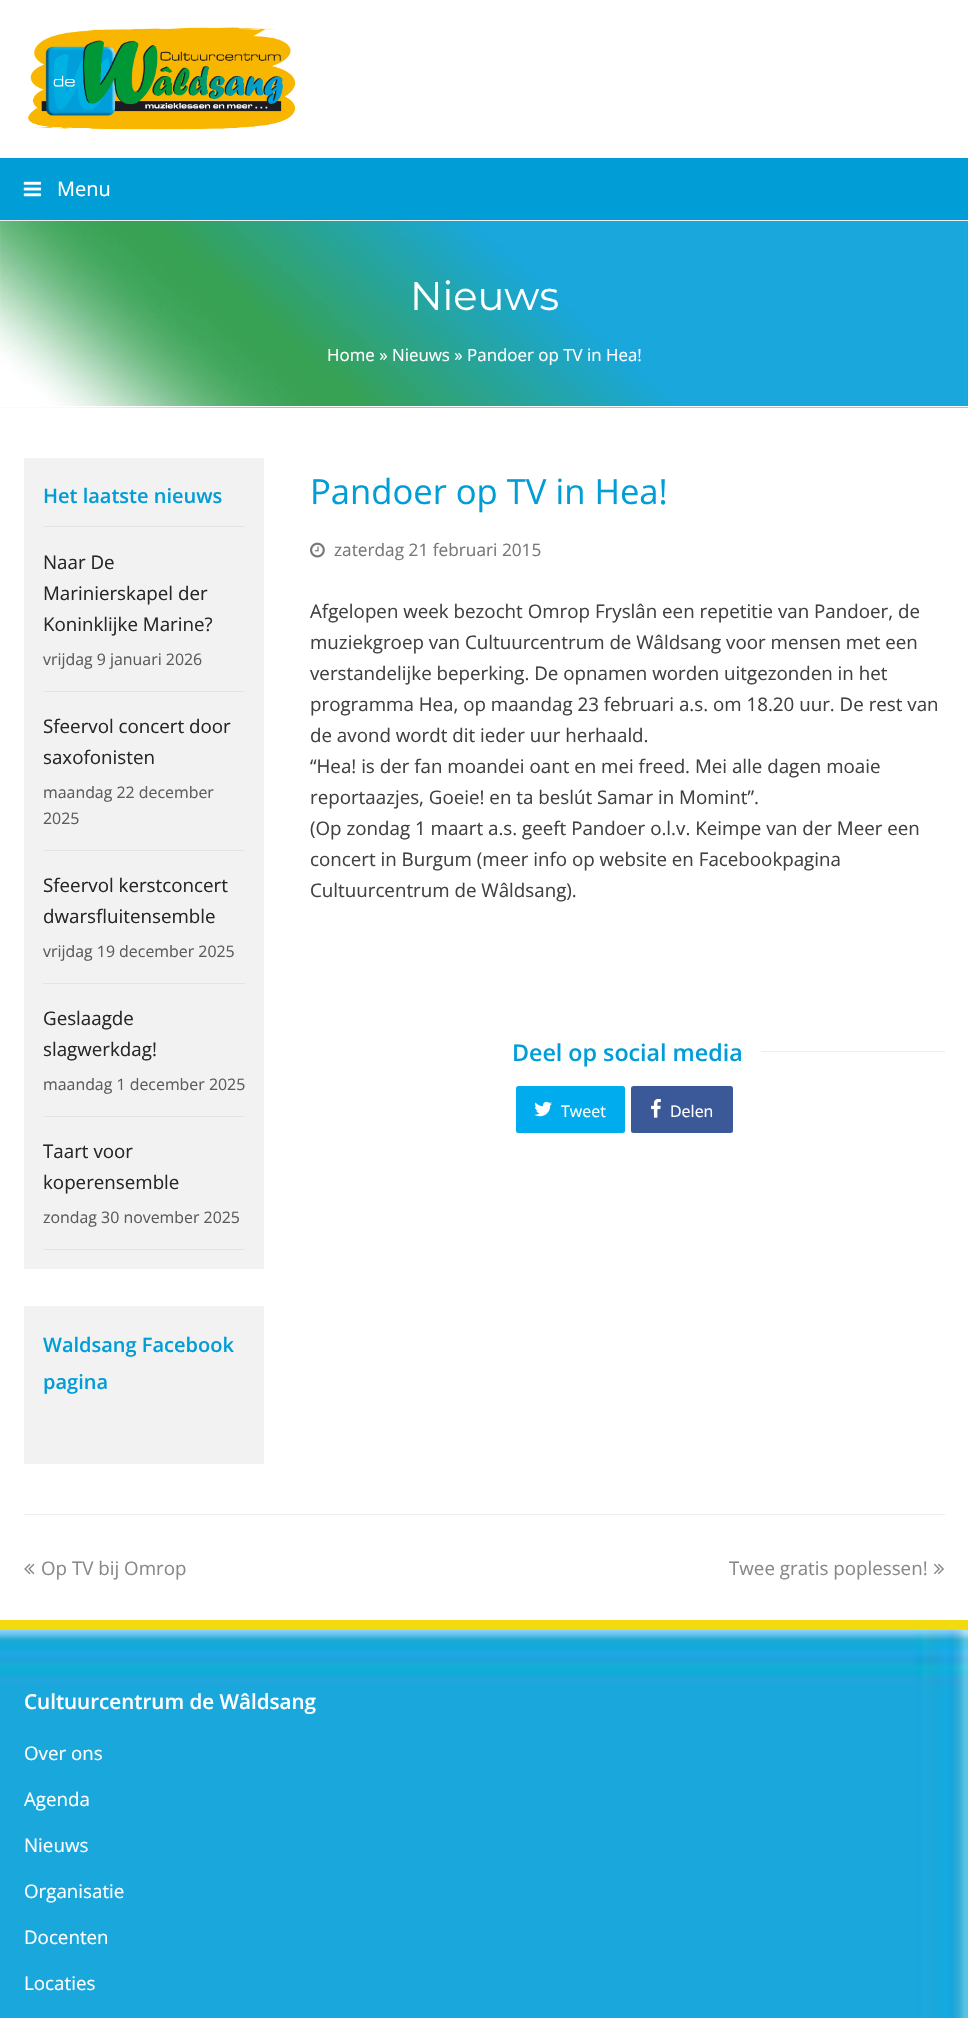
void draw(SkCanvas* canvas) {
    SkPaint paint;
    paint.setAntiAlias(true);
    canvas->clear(0xFFFFFFFF);
    canvas->drawImageRect(SkImages::DeferredFromEncodedData(SkData::MakeFromFileName("img1.png")), SkRect::MakeXYWH(28, 27, 268, 103), SkSamplingOptions());
    paint.setColor(0xFF009DD7);
    canvas->drawRect(SkRect::MakeXYWH(0, 158, 968, 62), paint);
    canvas->drawImageRect(SkImages::DeferredFromEncodedData(SkData::MakeFromFileName("img2.png")), SkRect::MakeXYWH(23, 181, 19, 16), SkSamplingOptions());
    SkFont font1(fontMgr->matchFamilyStyle("Open Sans", SkFontStyle::Normal()), 20);
    font1.setSubpixel(true);
    paint.setColor(0xFFFFFFFF);
    canvas->drawString("Menu", 57, 196, font1, paint);
    paint.setColor(0xFFF7F7F7);
    canvas->drawRect(SkRect::MakeXYWH(0, 407, 968, 1), paint);
    canvas->drawImageRect(SkImages::DeferredFromEncodedData(SkData::MakeFromFileName("img3.png")), SkRect::MakeXYWH(0, 221, 968, 187), SkSamplingOptions());
    paint.setColor(0xFFEEEEEE);
    canvas->drawRect(SkRect::MakeXYWH(0, 220, 968, 1), paint);
    paint.setColor(0xFFFFFFFF);
    canvas->drawRect(SkRect::MakeXYWH(56, 406, 912, 1), paint);
    SkFont font2(fontMgr->matchFamilyStyle("Montserrat", SkFontStyle::Normal()), 40);
    font2.setSubpixel(true);
    canvas->drawString("Nieuws", 410, 310, font2, paint);
    SkFont font3(fontMgr->matchFamilyStyle("Open Sans", SkFontStyle::Normal()), 16.9f);
    font3.setSubpixel(true);
    canvas->drawString("Home » Nieuws » Pandoer op TV in Hea!", 327, 361, font3, paint);
    paint.setColor(0xFFF2F2F2);
    canvas->drawRect(SkRect::MakeXYWH(24, 458, 240, 811), paint);
    SkFont font4(fontMgr->matchFamilyStyle("Open Sans", SkFontStyle(600, SkFontStyle::kNormal_Width, SkFontStyle::kUpright_Slant)), 20);
    font4.setSubpixel(true);
    paint.setColor(0xFF009DD7);
    canvas->drawString("Het laatste nieuws", 43, 503, font4, paint);
    paint.setColor(0xFFE4E4E4);
    canvas->drawRect(SkRect::MakeXYWH(43, 526, 202, 1), paint);
    canvas->drawRect(SkRect::MakeXYWH(43, 691, 202, 1), paint);
    SkFont font5(fontMgr->matchFamilyStyle("Open Sans", SkFontStyle::Normal()), 18.75f);
    font5.setSubpixel(true);
    paint.setColor(0xFF272727);
    canvas->drawString("Naar De", 43, 569, font5, paint);
    canvas->drawString("Marinierskapel der", 43, 600, font5, paint);
    canvas->drawString("Koninklijke Marine?", 43, 631, font5, paint);
    SkFont font6(fontMgr->matchFamilyStyle("Open Sans", SkFontStyle::Normal()), 15.9f);
    font6.setSubpixel(true);
    paint.setColor(0xFF5C5C5C);
    canvas->drawString("vrijdag 9 januari 2026", 43, 665, font6, paint);
    paint.setColor(0xFFE4E4E4);
    canvas->drawRect(SkRect::MakeXYWH(43, 850, 202, 1), paint);
    paint.setColor(0xFF272727);
    canvas->drawString("Sfeervol concert door", 43, 733, font5, paint);
    canvas->drawString("saxofonisten", 43, 764, font5, paint);
    paint.setColor(0xFF5C5C5C);
    canvas->drawString("maandag 22 december", 43, 798, font6, paint);
    canvas->drawString("2025", 43, 824, font6, paint);
    paint.setColor(0xFFE4E4E4);
    canvas->drawRect(SkRect::MakeXYWH(43, 983, 202, 1), paint);
    paint.setColor(0xFF272727);
    canvas->drawString("Sfeervol kerstconcert", 43, 892, font5, paint);
    canvas->drawString("dwarsfluitensemble", 43, 923, font5, paint);
    paint.setColor(0xFF5C5C5C);
    canvas->drawString("vrijdag 19 december 2025", 43, 957, font6, paint);
    paint.setColor(0xFFE4E4E4);
    canvas->drawRect(SkRect::MakeXYWH(43, 1116, 202, 1), paint);
    paint.setColor(0xFF272727);
    canvas->drawString("Geslaagde", 43, 1025, font5, paint);
    canvas->drawString("slagwerkdag!", 43, 1056, font5, paint);
    paint.setColor(0xFF5C5C5C);
    canvas->drawString("maandag 1 december 2025", 43, 1090, font6, paint);
    paint.setColor(0xFFE4E4E4);
    canvas->drawRect(SkRect::MakeXYWH(43, 1249, 202, 1), paint);
    paint.setColor(0xFF272727);
    canvas->drawString("Taart voor", 43, 1158, font5, paint);
    canvas->drawString("koperensemble", 43, 1189, font5, paint);
    paint.setColor(0xFF5C5C5C);
    canvas->drawString("zondag 30 november 2025", 43, 1223, font6, paint);
    paint.setColor(0xFFF2F2F2);
    canvas->drawRect(SkRect::MakeXYWH(24, 1306, 240, 158), paint);
    paint.setColor(0xFF009DD7);
    canvas->drawString("Waldsang Facebook", 43, 1352, font4, paint);
    canvas->drawString("pagina", 43, 1389, font4, paint);
    SkFont font7(fontMgr->matchFamilyStyle("Open Sans", SkFontStyle::Normal()), 34.6f);
    font7.setSubpixel(true);
    canvas->drawString("Pandoer op TV in Hea!", 310, 504, font7, paint);
    canvas->drawImageRect(SkImages::DeferredFromEncodedData(SkData::MakeFromFileName("img4.png")), SkRect::MakeXYWH(310, 542, 15, 16), SkSamplingOptions());
    SkFont font8(fontMgr->matchFamilyStyle("Open Sans", SkFontStyle::Normal()), 17.25f);
    font8.setSubpixel(true);
    paint.setColor(0xFF777777);
    canvas->drawString("zaterdag 21 februari 2015", 334, 556, font8, paint);
    paint.setColor(0xFF414141);
    canvas->drawString("Afgelopen week bezocht Omrop Fryslân een repetitie van Pandoer, de", 310, 618, font5, paint);
    canvas->drawString("muziekgroep van Cultuurcentrum de Wâldsang voor mensen met een", 310, 649, font5, paint);
    canvas->drawString("verstandelijke beperking. De opnamen worden uitgezonden in het", 310, 680, font5, paint);
    canvas->drawString("programma Hea, op maandag 23 februari a.s. om 18.20 uur. De rest van", 310, 711, font5, paint);
    canvas->drawString("de avond wordt dit ieder uur herhaald.", 310, 742, font5, paint);
    canvas->drawString("“Hea! is der fan moandei oant en mei freed. Mei alle dagen moaie", 310, 773, font5, paint);
    canvas->drawString("reportaazjes, Goeie! en ta beslút Samar in Momint”.", 310, 804, font5, paint);
    canvas->drawString("(Op zondag 1 maart a.s. geeft Pandoer o.l.v. Keimpe van der Meer een", 310, 835, font5, paint);
    canvas->drawString("concert in Burgum (meer info op website en Facebookpagina", 310, 866, font5, paint);
    canvas->drawString("Cultuurcentrum de Wâldsang).", 310, 897, font5, paint);
    SkFont font9(fontMgr->matchFamilyStyle("Open Sans", SkFontStyle(600, SkFontStyle::kNormal_Width, SkFontStyle::kUpright_Slant)), 23.25f);
    font9.setSubpixel(true);
    paint.setColor(0xFF009DD7);
    canvas->drawString("Deel op social media", 512, 1061, font9, paint);
    paint.setColor(0xFFEEEEEE);
    canvas->drawRect(SkRect::MakeXYWH(761, 1051, 184, 1), paint);
    paint.setColor(0xFF00ACED);
    canvas->drawRoundRect(SkRect::MakeXYWH(516, 1086, 109, 47), 2.5f, 2.5f, paint);
    canvas->drawImageRect(SkImages::DeferredFromEncodedData(SkData::MakeFromFileName("img5.png")), SkRect::MakeXYWH(534, 1101, 18, 16), SkSamplingOptions());
    SkFont font10(fontMgr->matchFamilyStyle("Open Sans", SkFontStyle::Normal()), 16);
    font10.setSubpixel(true);
    paint.setColor(0xFFFFFFFF);
    canvas->drawString("Tweet", 561, 1117, font10, paint);
    paint.setColor(0xFF3B5998);
    canvas->drawRoundRect(SkRect::MakeXYWH(631, 1086, 102, 47), 2.5f, 2.5f, paint);
    canvas->drawImageRect(SkImages::DeferredFromEncodedData(SkData::MakeFromFileName("img6.png")), SkRect::MakeXYWH(651, 1098, 10, 20), SkSamplingOptions());
    paint.setColor(0xFFFFFFFF);
    canvas->drawString("Delen", 670, 1117, font10, paint);
    paint.setColor(0xFFEEEEEE);
    canvas->drawRect(SkRect::MakeXYWH(24, 1514, 921, 1), paint);
    canvas->drawImageRect(SkImages::DeferredFromEncodedData(SkData::MakeFromFileName("img7.png")), SkRect::MakeXYWH(24, 1563, 11, 12), SkSamplingOptions());
    paint.setColor(0xFF888888);
    canvas->drawString("Op TV bij Omrop", 41, 1575, font5, paint);
    canvas->drawString("Twee gratis poplessen!", 729, 1575, font5, paint);
    canvas->drawImageRect(SkImages::DeferredFromEncodedData(SkData::MakeFromFileName("img8.png")), SkRect::MakeXYWH(934, 1563, 10, 12), SkSamplingOptions());
    canvas->drawImageRect(SkImages::DeferredFromEncodedData(SkData::MakeFromFileName("img9.png")), SkRect::MakeXYWH(0, 1630, 968, 388), SkSamplingOptions());
    paint.setColor(0xFFF1DB10);
    canvas->drawRect(SkRect::MakeXYWH(0, 1620, 968, 10), paint);
    SkFont font11(fontMgr->matchFamilyStyle("Open Sans", SkFontStyle(600, SkFontStyle::kNormal_Width, SkFontStyle::kUpright_Slant)), 20.6f);
    font11.setSubpixel(true);
    paint.setColor(0xFFFFFFFF);
    canvas->drawString("Cultuurcentrum de Wâldsang", 24, 1709, font11, paint);
    canvas->drawString("Over ons", 24, 1760, font5, paint);
    canvas->drawString("Agenda", 24, 1806, font5, paint);
    canvas->drawString("Nieuws", 24, 1852, font5, paint);
    canvas->drawString("Organisatie", 24, 1898, font5, paint);
    canvas->drawString("Docenten", 24, 1944, font5, paint);
    canvas->drawString("Locaties", 24, 1990, font5, paint);
}
